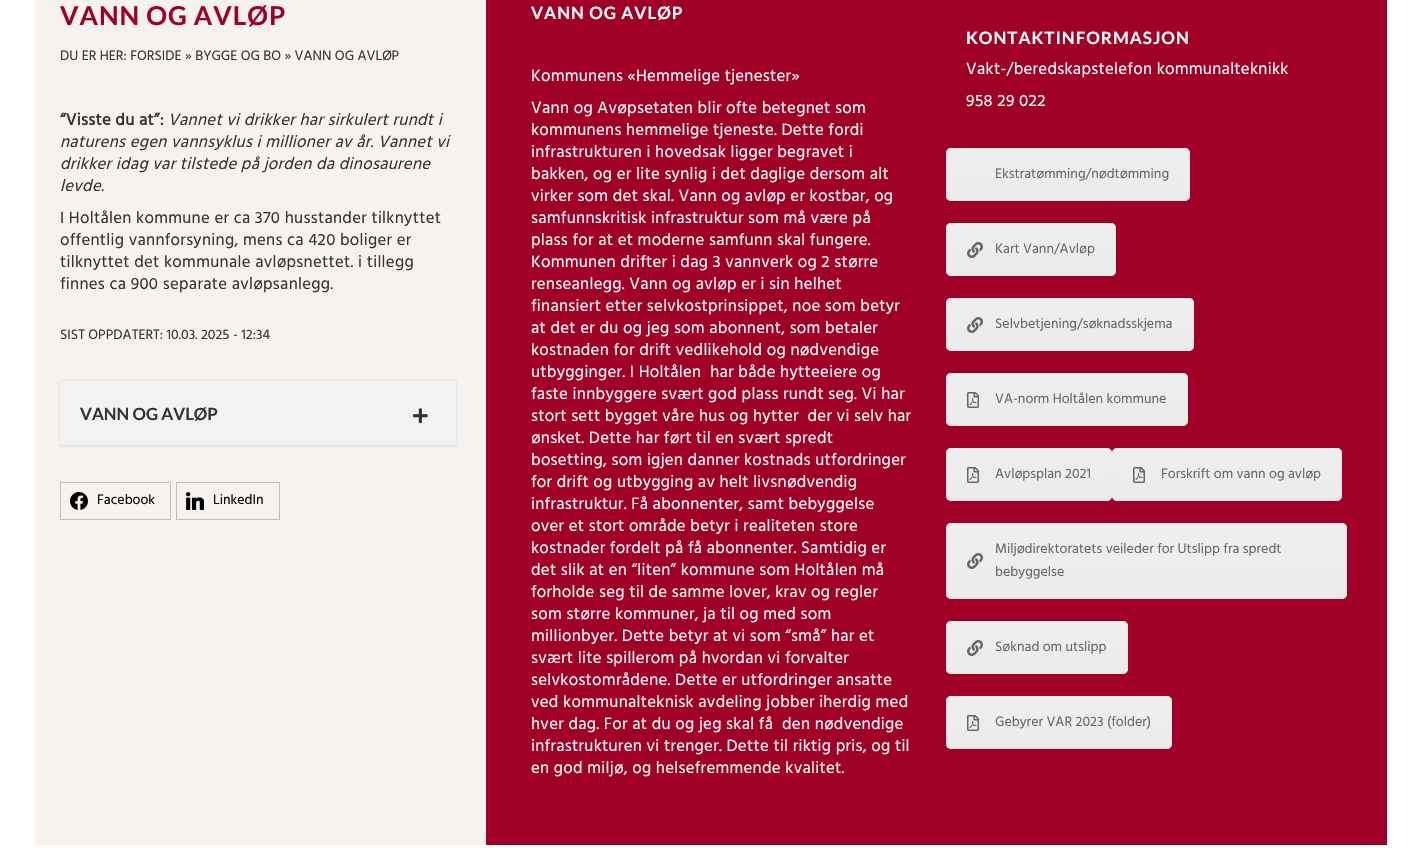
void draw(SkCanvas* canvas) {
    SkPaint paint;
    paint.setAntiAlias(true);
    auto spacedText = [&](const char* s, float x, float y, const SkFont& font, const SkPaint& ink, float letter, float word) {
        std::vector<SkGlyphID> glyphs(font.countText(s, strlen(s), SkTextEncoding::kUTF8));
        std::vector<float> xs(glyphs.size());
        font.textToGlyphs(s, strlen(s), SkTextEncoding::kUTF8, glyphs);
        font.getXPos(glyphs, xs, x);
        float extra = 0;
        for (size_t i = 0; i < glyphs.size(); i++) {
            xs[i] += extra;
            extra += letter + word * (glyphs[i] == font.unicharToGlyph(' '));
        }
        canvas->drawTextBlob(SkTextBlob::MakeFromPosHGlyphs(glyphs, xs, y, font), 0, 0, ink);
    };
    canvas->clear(0xFFFFFFFF);
    paint.setColor(0xFFF6F2F0);
    canvas->drawRect(SkRect::MakeXYWH(35, 0, 451, 845), paint);
    SkFont font1(fontMgr->matchFamilyStyle("Lato", SkFontStyle::Bold()), 26);
    font1.setSubpixel(true);
    paint.setColor(0xFFA00026);
    spacedText("VANN OG AVLØP", 60, 25, font1, paint, 1, 0);
    SkFont font2(fontMgr->matchFamilyStyle("Hind", SkFontStyle::Normal()), 14);
    font2.setSubpixel(true);
    paint.setColor(0xFF333333);
    canvas->drawString("DU ER HER: FORSIDE » BYGGE OG BO » VANN OG AVLØP", 60, 60, font2, paint);
    SkFont font3(fontMgr->matchFamilyStyle("Hind", SkFontStyle::Bold()), 16.8f);
    font3.setSubpixel(true);
    spacedText("“Visste du at”:", 60, 125, font3, paint, 0.3f, 0);
    SkFont font4(fontMgr->matchFamilyStyle("Hind", SkFontStyle::Italic()), 16.8f);
    font4.setSubpixel(true);
    spacedText("Vannet vi drikker har sirkulert rundt i", 168, 125, font4, paint, 0.3f, 0);
    spacedText("naturens egen vannsyklus i millioner av år. Vannet vi", 60, 147, font4, paint, 0.3f, 0);
    spacedText("drikker idag var tilstede på jorden da dinosaurene", 60, 169, font4, paint, 0.3f, 0);
    spacedText("levde.", 60, 191, font4, paint, 0.3f, 0);
    SkFont font5(fontMgr->matchFamilyStyle("Hind", SkFontStyle::Normal()), 16.8f);
    font5.setSubpixel(true);
    spacedText("I Holtålen kommune er ca 370 husstander tilknyttet", 60, 223, font5, paint, 0.3f, 0);
    spacedText("offentlig vannforsyning, mens ca 420 boliger er", 60, 245, font5, paint, 0.3f, 0);
    spacedText("tilknyttet det kommunale avløpsnettet. i tillegg", 60, 267, font5, paint, 0.3f, 0);
    spacedText("finnes ca 900 separate avløpsanlegg.", 60, 289, font5, paint, 0.3f, 0);
    canvas->drawString("SIST OPPDATERT: 10.03. 2025 - 12:34", 60, 339, font2, paint);
    paint.setColor(0x2B000000);
    paint.setMaskFilter(SkMaskFilter::MakeBlur(kNormal_SkBlurStyle, 1));
    canvas->drawRect(SkRect::MakeXYWH(60, 381, 396, 65), paint);
    paint.setMaskFilter(nullptr);
    paint.setColor(0xFFF2F2F2);
    canvas->drawRect(SkRect::MakeXYWH(60, 381, 396, 64), paint);
    paint.setColor(0xFFE6E6E6);
    canvas->drawRect(SkRect::MakeXYWH(60, 445, 396, 1), paint);
    SkFont font6(fontMgr->matchFamilyStyle("Lato", SkFontStyle::Bold()), 16.8f);
    font6.setSubpixel(true);
    paint.setColor(0xFF333333);
    canvas->drawString("VANN OG AVLØP", 80, 420, font6, paint);
    canvas->drawImageRect(SkImages::DeferredFromEncodedData(SkData::MakeFromFileName("img1.png")), SkRect::MakeXYWH(413, 408, 15, 16), SkSamplingOptions());
    paint.setStyle(SkPaint::kStroke_Style);
    paint.setStrokeWidth(1);
    paint.setColor(0xFFBFBFBF);
    canvas->drawRect(SkRect::MakeXYWH(60.5f, 482.5f, 110, 37), paint);
    canvas->drawImageRect(SkImages::DeferredFromEncodedData(SkData::MakeFromFileName("img2.png")), SkRect::MakeXYWH(70, 492, 18, 18), SkSamplingOptions());
    paint.setStyle(SkPaint::kFill_Style);
    paint.setColor(0xFF000000);
    canvas->drawString("Facebook", 97, 504, font2, paint);
    paint.setStyle(SkPaint::kStroke_Style);
    paint.setColor(0xFFBFBFBF);
    canvas->drawRect(SkRect::MakeXYWH(176.5f, 482.5f, 103, 37), paint);
    canvas->drawImageRect(SkImages::DeferredFromEncodedData(SkData::MakeFromFileName("img3.png")), SkRect::MakeXYWH(186, 492, 18, 18), SkSamplingOptions());
    paint.setStyle(SkPaint::kFill_Style);
    paint.setColor(0xFF000000);
    canvas->drawString("LinkedIn", 213, 504, font2, paint);
    paint.setColor(0xFFA00026);
    canvas->drawRect(SkRect::MakeXYWH(486, 0, 901, 845), paint);
    SkFont font7(fontMgr->matchFamilyStyle("Lato", SkFontStyle::Bold()), 17);
    font7.setSubpixel(true);
    paint.setColor(0xFFFFFFFF);
    spacedText("VANN OG AVLØP", 531, 19, font7, paint, 1, 0);
    spacedText("Kommunens «Hemmelige tjenester»", 531, 81, font5, paint, 0.3f, 0);
    spacedText("Vann og Avøpsetaten blir ofte betegnet som", 531, 113, font5, paint, 0.3f, 0);
    spacedText("kommunens hemmelige tjeneste. Dette fordi", 531, 135, font5, paint, 0.3f, 0);
    spacedText("infrastrukturen i hovedsak ligger begravet i", 531, 157, font5, paint, 0.3f, 0);
    spacedText("bakken, og er lite synlig i det daglige dersom alt", 531, 179, font5, paint, 0.3f, 0);
    spacedText("virker som det skal. Vann og avløp er kostbar, og", 531, 201, font5, paint, 0.3f, 0);
    spacedText("samfunnskritisk infrastruktur som må være på", 531, 223, font5, paint, 0.3f, 0);
    spacedText("plass for at et moderne samfunn skal fungere.", 531, 245, font5, paint, 0.3f, 0);
    spacedText("Kommunen drifter i dag 3 vannverk og 2 større", 531, 267, font5, paint, 0.3f, 0);
    spacedText("renseanlegg. Vann og avløp er i sin helhet", 531, 289, font5, paint, 0.3f, 0);
    spacedText("finansiert etter selvkostprinsippet, noe som betyr", 531, 311, font5, paint, 0.3f, 0);
    spacedText("at det er du og jeg som abonnent, som betaler", 531, 333, font5, paint, 0.3f, 0);
    spacedText("kostnaden for drift vedlikehold og nødvendige", 531, 355, font5, paint, 0.3f, 0);
    spacedText("utbygginger. I Holtålen  har både hytteeiere og", 531, 377, font5, paint, 0.3f, 0);
    spacedText("faste innbyggere svært god plass rundt seg. Vi har", 531, 399, font5, paint, 0.3f, 0);
    spacedText("stort sett bygget våre hus og hytter  der vi selv har", 531, 421, font5, paint, 0.3f, 0);
    spacedText("ønsket. Dette har ført til en svært spredt", 531, 443, font5, paint, 0.3f, 0);
    spacedText("bosetting, som igjen danner kostnads utfordringer", 531, 465, font5, paint, 0.3f, 0);
    spacedText("for drift og utbygging av helt livsnødvendig", 531, 487, font5, paint, 0.3f, 0);
    spacedText("infrastruktur. Få abonnenter, samt bebyggelse", 531, 509, font5, paint, 0.3f, 0);
    spacedText("over et stort område betyr i realiteten store", 531, 531, font5, paint, 0.3f, 0);
    spacedText("kostnader fordelt på få abonnenter. Samtidig er", 531, 553, font5, paint, 0.3f, 0);
    spacedText("det slik at en “liten” kommune som Holtålen må", 531, 575, font5, paint, 0.3f, 0);
    spacedText("forholde seg til de samme lover, krav og regler", 531, 597, font5, paint, 0.3f, 0);
    spacedText("som større kommuner, ja til og med som", 531, 619, font5, paint, 0.3f, 0);
    spacedText("millionbyer. Dette betyr at vi som “små” har et", 531, 641, font5, paint, 0.3f, 0);
    spacedText("svært lite spillerom på hvordan vi forvalter", 531, 663, font5, paint, 0.3f, 0);
    spacedText("selvkostområdene. Dette er utfordringer ansatte", 531, 685, font5, paint, 0.3f, 0);
    spacedText("ved kommunalteknisk avdeling jobber iherdig med", 531, 707, font5, paint, 0.3f, 0);
    spacedText("hver dag. For at du og jeg skal få  den nødvendige", 531, 729, font5, paint, 0.3f, 0);
    spacedText("infrastrukturen vi trenger. Dette til riktig pris, og til", 531, 751, font5, paint, 0.3f, 0);
    spacedText("en god miljø, og helsefremmende kvalitet.", 531, 773, font5, paint, 0.3f, 0);
    spacedText("KONTAKTINFORMASJON", 966, 44, font7, paint, 1, 0);
    spacedText("Vakt-/beredskapstelefon kommunalteknikk", 966, 74, font5, paint, 0.3f, 0);
    spacedText("958 29 022", 966, 106, font5, paint, 0.3f, 0);
    paint.setColor(0xFFEBEBEB);
    canvas->drawRoundRect(SkRect::MakeXYWH(946, 148, 244, 53), 5, 5, paint);
    canvas->save();
    canvas->clipPath(SkPathBuilder().moveTo(951, 148).lineTo(1185, 148).cubicTo(1188, 148, 1190, 150, 1190, 153).lineTo(1190, 196).cubicTo(1190, 199, 1188, 201, 1185, 201).lineTo(951, 201).cubicTo(948, 201, 946, 199, 946, 196).lineTo(946, 153).cubicTo(946, 150, 948, 148, 951, 148).close().detach(), true);
    {
        const SkColor colors[] = {0x33FFFFFF, 0x03FFFFFF};
        const float stops[] = {0, 1};
        const SkPoint ends[] = {{1068, 149}, {1068, 200}};
        paint.setShader(SkGradientShader::MakeLinear(ends, colors, stops, 2, SkTileMode::kClamp));
        paint.setAlpha(255);
    }
    canvas->drawRect(SkRect::MakeXYWH(946, 149, 244, 48), paint);
    canvas->restore();
    paint.setStyle(SkPaint::kStroke_Style);
    paint.setShader(nullptr);
    paint.setColor(0xFFEBEBEB);
    canvas->drawRoundRect(SkRect::MakeXYWH(946.5f, 148.5f, 243, 52), 4.5f, 4.5f, paint);
    paint.setStyle(SkPaint::kFill_Style);
    paint.setColor(0xFF666666);
    canvas->drawString("Ekstratømming/nødtømming", 995, 178, font2, paint);
    paint.setColor(0xFFEBEBEB);
    canvas->drawRoundRect(SkRect::MakeXYWH(946, 223, 170, 53), 5, 5, paint);
    canvas->save();
    canvas->clipPath(SkPathBuilder().moveTo(951, 223).lineTo(1111, 223).cubicTo(1114, 223, 1116, 225, 1116, 228).lineTo(1116, 271).cubicTo(1116, 274, 1114, 276, 1111, 276).lineTo(951, 276).cubicTo(948, 276, 946, 274, 946, 271).lineTo(946, 228).cubicTo(946, 225, 948, 223, 951, 223).close().detach(), true);
    {
        const SkColor colors[] = {0x33FFFFFF, 0x03FFFFFF};
        const float stops[] = {0, 1};
        const SkPoint ends[] = {{1031, 224}, {1031, 275}};
        paint.setShader(SkGradientShader::MakeLinear(ends, colors, stops, 2, SkTileMode::kClamp));
        paint.setAlpha(255);
    }
    canvas->drawRect(SkRect::MakeXYWH(946, 224, 170, 48), paint);
    canvas->restore();
    paint.setStyle(SkPaint::kStroke_Style);
    paint.setShader(nullptr);
    paint.setColor(0xFFEBEBEB);
    canvas->drawRoundRect(SkRect::MakeXYWH(946.5f, 223.5f, 169, 52), 4.5f, 4.5f, paint);
    canvas->drawImageRect(SkImages::DeferredFromEncodedData(SkData::MakeFromFileName("img4.png")), SkRect::MakeXYWH(967, 242, 16, 16), SkSamplingOptions());
    paint.setStyle(SkPaint::kFill_Style);
    paint.setColor(0xFF666666);
    canvas->drawString("Kart Vann/Avløp", 995, 253, font2, paint);
    paint.setColor(0xFFEBEBEB);
    canvas->drawRoundRect(SkRect::MakeXYWH(946, 298, 248, 53), 5, 5, paint);
    canvas->save();
    canvas->clipPath(SkPathBuilder().moveTo(951, 298).lineTo(1189, 298).cubicTo(1192, 298, 1194, 300, 1194, 303).lineTo(1194, 346).cubicTo(1194, 349, 1192, 351, 1189, 351).lineTo(951, 351).cubicTo(948, 351, 946, 349, 946, 346).lineTo(946, 303).cubicTo(946, 300, 948, 298, 951, 298).close().detach(), true);
    {
        const SkColor colors[] = {0x33FFFFFF, 0x03FFFFFF};
        const float stops[] = {0, 1};
        const SkPoint ends[] = {{1070, 299}, {1070, 350}};
        paint.setShader(SkGradientShader::MakeLinear(ends, colors, stops, 2, SkTileMode::kClamp));
        paint.setAlpha(255);
    }
    canvas->drawRect(SkRect::MakeXYWH(946, 299, 248, 48), paint);
    canvas->restore();
    paint.setStyle(SkPaint::kStroke_Style);
    paint.setShader(nullptr);
    paint.setColor(0xFFEBEBEB);
    canvas->drawRoundRect(SkRect::MakeXYWH(946.5f, 298.5f, 247, 52), 4.5f, 4.5f, paint);
    canvas->drawImageRect(SkImages::DeferredFromEncodedData(SkData::MakeFromFileName("img4.png")), SkRect::MakeXYWH(967, 317, 16, 16), SkSamplingOptions());
    paint.setStyle(SkPaint::kFill_Style);
    paint.setColor(0xFF666666);
    canvas->drawString("Selvbetjening/søknadsskjema", 995, 328, font2, paint);
    paint.setColor(0xFFEBEBEB);
    canvas->drawRoundRect(SkRect::MakeXYWH(946, 373, 242, 53), 5, 5, paint);
    canvas->save();
    canvas->clipPath(SkPathBuilder().moveTo(951, 373).lineTo(1183, 373).cubicTo(1186, 373, 1188, 375, 1188, 378).lineTo(1188, 421).cubicTo(1188, 424, 1186, 426, 1183, 426).lineTo(951, 426).cubicTo(948, 426, 946, 424, 946, 421).lineTo(946, 378).cubicTo(946, 375, 948, 373, 951, 373).close().detach(), true);
    {
        const SkColor colors[] = {0x33FFFFFF, 0x03FFFFFF};
        const float stops[] = {0, 1};
        const SkPoint ends[] = {{1067, 374}, {1067, 425}};
        paint.setShader(SkGradientShader::MakeLinear(ends, colors, stops, 2, SkTileMode::kClamp));
        paint.setAlpha(255);
    }
    canvas->drawRect(SkRect::MakeXYWH(946, 374, 242, 48), paint);
    canvas->restore();
    paint.setStyle(SkPaint::kStroke_Style);
    paint.setShader(nullptr);
    paint.setColor(0xFFEBEBEB);
    canvas->drawRoundRect(SkRect::MakeXYWH(946.5f, 373.5f, 241, 52), 4.5f, 4.5f, paint);
    canvas->drawImageRect(SkImages::DeferredFromEncodedData(SkData::MakeFromFileName("img5.png")), SkRect::MakeXYWH(967, 392, 12, 16), SkSamplingOptions());
    paint.setStyle(SkPaint::kFill_Style);
    paint.setColor(0xFF666666);
    canvas->drawString("VA-norm Holtålen kommune", 995, 403, font2, paint);
    paint.setColor(0xFFEBEBEB);
    canvas->drawRoundRect(SkRect::MakeXYWH(946, 448, 166, 53), 5, 5, paint);
    canvas->save();
    canvas->clipPath(SkPathBuilder().moveTo(951, 448).lineTo(1107, 448).cubicTo(1110, 448, 1112, 450, 1112, 453).lineTo(1112, 496).cubicTo(1112, 499, 1110, 501, 1107, 501).lineTo(951, 501).cubicTo(948, 501, 946, 499, 946, 496).lineTo(946, 453).cubicTo(946, 450, 948, 448, 951, 448).close().detach(), true);
    {
        const SkColor colors[] = {0x33FFFFFF, 0x03FFFFFF};
        const float stops[] = {0, 1};
        const SkPoint ends[] = {{1029, 449}, {1029, 500}};
        paint.setShader(SkGradientShader::MakeLinear(ends, colors, stops, 2, SkTileMode::kClamp));
        paint.setAlpha(255);
    }
    canvas->drawRect(SkRect::MakeXYWH(946, 449, 166, 48), paint);
    canvas->restore();
    paint.setStyle(SkPaint::kStroke_Style);
    paint.setShader(nullptr);
    paint.setColor(0xFFEBEBEB);
    canvas->drawRoundRect(SkRect::MakeXYWH(946.5f, 448.5f, 165, 52), 4.5f, 4.5f, paint);
    canvas->drawImageRect(SkImages::DeferredFromEncodedData(SkData::MakeFromFileName("img5.png")), SkRect::MakeXYWH(967, 467, 12, 16), SkSamplingOptions());
    paint.setStyle(SkPaint::kFill_Style);
    paint.setColor(0xFF666666);
    canvas->drawString("Avløpsplan 2021", 995, 478, font2, paint);
    paint.setColor(0xFFEBEBEB);
    canvas->drawRoundRect(SkRect::MakeXYWH(1112, 448, 230, 53), 5, 5, paint);
    canvas->save();
    canvas->clipPath(SkPathBuilder().moveTo(1117, 448).lineTo(1337, 448).cubicTo(1340, 448, 1342, 450, 1342, 453).lineTo(1342, 496).cubicTo(1342, 499, 1340, 501, 1337, 501).lineTo(1117, 501).cubicTo(1114, 501, 1112, 499, 1112, 496).lineTo(1112, 453).cubicTo(1112, 450, 1114, 448, 1117, 448).close().detach(), true);
    {
        const SkColor colors[] = {0x33FFFFFF, 0x03FFFFFF};
        const float stops[] = {0, 1};
        const SkPoint ends[] = {{1227, 449}, {1227, 500}};
        paint.setShader(SkGradientShader::MakeLinear(ends, colors, stops, 2, SkTileMode::kClamp));
        paint.setAlpha(255);
    }
    canvas->drawRect(SkRect::MakeXYWH(1112, 449, 230, 48), paint);
    canvas->restore();
    paint.setStyle(SkPaint::kStroke_Style);
    paint.setShader(nullptr);
    paint.setColor(0xFFEBEBEB);
    canvas->drawRoundRect(SkRect::MakeXYWH(1112.5f, 448.5f, 229, 52), 4.5f, 4.5f, paint);
    canvas->drawImageRect(SkImages::DeferredFromEncodedData(SkData::MakeFromFileName("img5.png")), SkRect::MakeXYWH(1133, 467, 12, 16), SkSamplingOptions());
    paint.setStyle(SkPaint::kFill_Style);
    paint.setColor(0xFF666666);
    canvas->drawString("Forskrift om vann og avløp", 1161, 478, font2, paint);
    paint.setColor(0xFFEBEBEB);
    canvas->drawRoundRect(SkRect::MakeXYWH(946, 523, 401, 76), 5, 5, paint);
    canvas->save();
    canvas->clipPath(SkPathBuilder().moveTo(951, 523).lineTo(1342, 523).cubicTo(1345, 523, 1347, 525, 1347, 528).lineTo(1347, 594).cubicTo(1347, 597, 1345, 599, 1342, 599).lineTo(951, 599).cubicTo(948, 599, 946, 597, 946, 594).lineTo(946, 528).cubicTo(946, 525, 948, 523, 951, 523).close().detach(), true);
    {
        const SkColor colors[] = {0x33FFFFFF, 0x03FFFFFF};
        const float stops[] = {0, 1};
        const SkPoint ends[] = {{1147, 524}, {1147, 598}};
        paint.setShader(SkGradientShader::MakeLinear(ends, colors, stops, 2, SkTileMode::kClamp));
        paint.setAlpha(255);
    }
    canvas->drawRect(SkRect::MakeXYWH(946, 524, 401, 69), paint);
    canvas->restore();
    paint.setStyle(SkPaint::kStroke_Style);
    paint.setShader(nullptr);
    paint.setColor(0xFFEBEBEB);
    canvas->drawRoundRect(SkRect::MakeXYWH(946.5f, 523.5f, 400, 75), 4.5f, 4.5f, paint);
    paint.setStyle(SkPaint::kFill_Style);
    paint.setColor(0xFF666666);
    canvas->drawString("Miljødirektoratets veileder for Utslipp fra spredt", 995, 553, font2, paint);
    canvas->drawImageRect(SkImages::DeferredFromEncodedData(SkData::MakeFromFileName("img6.png")), SkRect::MakeXYWH(967, 553, 16, 16), SkSamplingOptions());
    canvas->drawString("bebyggelse", 995, 576, font2, paint);
    paint.setColor(0xFFEBEBEB);
    canvas->drawRoundRect(SkRect::MakeXYWH(946, 621, 182, 53), 5, 5, paint);
    canvas->save();
    canvas->clipPath(SkPathBuilder().moveTo(951, 621).lineTo(1123, 621).cubicTo(1126, 621, 1128, 623, 1128, 626).lineTo(1128, 669).cubicTo(1128, 672, 1126, 674, 1123, 674).lineTo(951, 674).cubicTo(948, 674, 946, 672, 946, 669).lineTo(946, 626).cubicTo(946, 623, 948, 621, 951, 621).close().detach(), true);
    {
        const SkColor colors[] = {0x33FFFFFF, 0x03FFFFFF};
        const float stops[] = {0, 1};
        const SkPoint ends[] = {{1037, 622}, {1037, 673}};
        paint.setShader(SkGradientShader::MakeLinear(ends, colors, stops, 2, SkTileMode::kClamp));
        paint.setAlpha(255);
    }
    canvas->drawRect(SkRect::MakeXYWH(946, 622, 182, 48), paint);
    canvas->restore();
    paint.setStyle(SkPaint::kStroke_Style);
    paint.setShader(nullptr);
    paint.setColor(0xFFEBEBEB);
    canvas->drawRoundRect(SkRect::MakeXYWH(946.5f, 621.5f, 181, 52), 4.5f, 4.5f, paint);
    canvas->drawImageRect(SkImages::DeferredFromEncodedData(SkData::MakeFromFileName("img4.png")), SkRect::MakeXYWH(967, 640, 16, 16), SkSamplingOptions());
    paint.setStyle(SkPaint::kFill_Style);
    paint.setColor(0xFF666666);
    canvas->drawString("Søknad om utslipp", 995, 651, font2, paint);
    paint.setColor(0xFFEBEBEB);
    canvas->drawRoundRect(SkRect::MakeXYWH(946, 696, 226, 53), 5, 5, paint);
    canvas->save();
    canvas->clipPath(SkPathBuilder().moveTo(951, 696).lineTo(1167, 696).cubicTo(1170, 696, 1172, 698, 1172, 701).lineTo(1172, 744).cubicTo(1172, 747, 1170, 749, 1167, 749).lineTo(951, 749).cubicTo(948, 749, 946, 747, 946, 744).lineTo(946, 701).cubicTo(946, 698, 948, 696, 951, 696).close().detach(), true);
    {
        const SkColor colors[] = {0x33FFFFFF, 0x03FFFFFF};
        const float stops[] = {0, 1};
        const SkPoint ends[] = {{1059, 697}, {1059, 748}};
        paint.setShader(SkGradientShader::MakeLinear(ends, colors, stops, 2, SkTileMode::kClamp));
        paint.setAlpha(255);
    }
    canvas->drawRect(SkRect::MakeXYWH(946, 697, 226, 48), paint);
    canvas->restore();
    paint.setStyle(SkPaint::kStroke_Style);
    paint.setShader(nullptr);
    paint.setColor(0xFFEBEBEB);
    canvas->drawRoundRect(SkRect::MakeXYWH(946.5f, 696.5f, 225, 52), 4.5f, 4.5f, paint);
    canvas->drawImageRect(SkImages::DeferredFromEncodedData(SkData::MakeFromFileName("img5.png")), SkRect::MakeXYWH(967, 715, 12, 16), SkSamplingOptions());
    paint.setStyle(SkPaint::kFill_Style);
    paint.setColor(0xFF666666);
    canvas->drawString("Gebyrer VAR 2023 (folder)", 995, 726, font2, paint);
}
